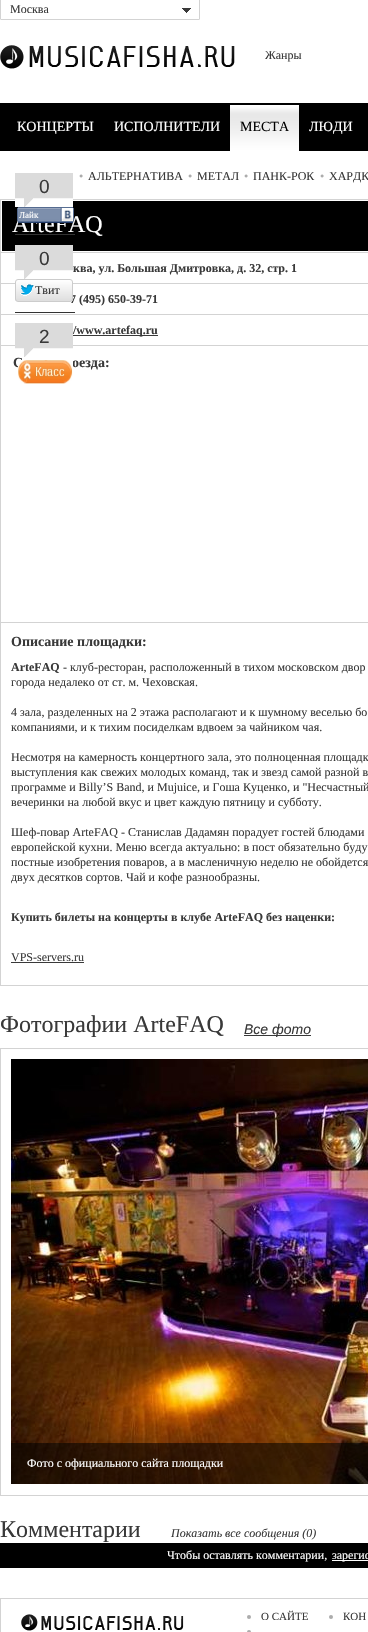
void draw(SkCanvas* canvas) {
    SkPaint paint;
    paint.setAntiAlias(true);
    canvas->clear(0xFFFFFFFF);
    canvas->drawImageRect(SkImages::DeferredFromEncodedData(SkData::MakeFromFileName("img1.png")), SkRect::MakeXYWH(0, 0, 200, 20), SkSamplingOptions());
    SkFont font1(fontMgr->matchFamilyStyle("Liberation Serif", SkFontStyle::Normal()), 12);
    font1.setSubpixel(true);
    paint.setColor(0xFF393939);
    canvas->drawString("Москва", 10, 13, font1, paint);
    canvas->drawImageRect(SkImages::DeferredFromEncodedData(SkData::MakeFromFileName("img2.png")), SkRect::MakeXYWH(0, 45, 235, 24), SkSamplingOptions());
    canvas->drawString("Жанры", 265, 59, font1, paint);
    paint.setColor(0xFF000000);
    canvas->drawRect(SkRect::MakeXYWH(0, 103, 368, 48), paint);
    SkFont font2(fontMgr->matchFamilyStyle("Liberation Serif", SkFontStyle::Normal()), 14);
    font2.setSubpixel(true);
    paint.setColor(0xFFFFFFFF);
    canvas->drawString("КОНЦЕРТЫ", 17, 131, font2, paint);
    canvas->drawString("ИСПОЛНИТЕЛИ", 114, 131, font2, paint);
    canvas->drawImageRect(SkImages::DeferredFromEncodedData(SkData::MakeFromFileName("img3.png")), SkRect::MakeXYWH(230, 105, 69, 46), SkSamplingOptions());
    paint.setColor(0xFF000000);
    canvas->drawString("МЕСТА", 240, 131, font2, paint);
    paint.setColor(0xFFFFFFFF);
    canvas->drawString("ЛЮДИ", 309, 131, font2, paint);
    paint.setColor(0xFFACACAC);
    canvas->drawString("•", 79, 180, font1, paint);
    paint.setColor(0xFF393939);
    canvas->drawString("АЛЬТЕРНАТИВА", 88, 180, font1, paint);
    paint.setColor(0xFFACACAC);
    canvas->drawString("•", 188, 180, font1, paint);
    paint.setColor(0xFF393939);
    canvas->drawString("МЕТАЛ", 197, 180, font1, paint);
    paint.setColor(0xFFACACAC);
    canvas->drawString("•", 244, 180, font1, paint);
    paint.setColor(0xFF393939);
    canvas->drawString("ПАНК-РОК", 253, 180, font1, paint);
    paint.setColor(0xFFACACAC);
    canvas->drawString("•", 320, 180, font1, paint);
    paint.setColor(0xFF393939);
    canvas->drawString("ХАРДК", 329, 180, font1, paint);
    paint.setStyle(SkPaint::kStroke_Style);
    paint.setStrokeWidth(1);
    paint.setColor(0xFFD3D3D3);
    canvas->drawRect(SkRect::MakeXYWH(0.5f, 199.5f, 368, 786), paint);
    paint.setStyle(SkPaint::kFill_Style);
    canvas->drawRect(SkRect::MakeXYWH(1, 252, 367, 1), paint);
    paint.setColor(0xFF000000);
    canvas->drawRect(SkRect::MakeXYWH(2, 201, 366, 50), paint);
    SkFont font3(fontMgr->matchFamilyStyle("Liberation Serif", SkFontStyle::Normal()), 24);
    font3.setSubpixel(true);
    paint.setColor(0xFFFFFFFF);
    canvas->drawString("ArteFAQ", 12, 232, font3, paint);
    paint.setColor(0xFFD3D3D3);
    canvas->drawRect(SkRect::MakeXYWH(1, 283, 367, 1), paint);
    SkFont font4(fontMgr->matchFamilyStyle("Liberation Serif", SkFontStyle::Bold()), 12);
    font4.setSubpixel(true);
    paint.setColor(0xFF393939);
    canvas->drawString("ква, ул. Большая Дмитровка, д. 32, стр. 1", 73, 272, font4, paint);
    paint.setColor(0xFFD3D3D3);
    canvas->drawRect(SkRect::MakeXYWH(1, 314, 367, 1), paint);
    paint.setColor(0xFF393939);
    canvas->drawString("7 (495) 650-39-71", 70, 303, font4, paint);
    paint.setColor(0xFFD3D3D3);
    canvas->drawRect(SkRect::MakeXYWH(1, 345, 367, 1), paint);
    paint.setColor(0xFF393939);
    canvas->drawRect(SkRect::MakeXYWH(73, 335, 85, 1), paint);
    canvas->drawString("/www.artefaq.ru", 73, 334, font4, paint);
    paint.setColor(0xFFD3D3D3);
    canvas->drawRect(SkRect::MakeXYWH(1, 622, 367, 1), paint);
    SkFont font5(fontMgr->matchFamilyStyle("Liberation Serif", SkFontStyle::Bold()), 14);
    font5.setSubpixel(true);
    paint.setColor(0xFF393939);
    canvas->drawString("С", 13, 367, font5, paint);
    canvas->drawString("оезда:", 72, 367, font5, paint);
    canvas->drawString("Описание площадки:", 11, 646, font5, paint);
    canvas->drawString("ArteFAQ", 11, 671, font4, paint);
    canvas->drawString("- клуб-ресторан, расположенный в тихом московском двор", 63, 671, font1, paint);
    canvas->drawString("города недалеко от ст. м. Чеховская.", 11, 686, font1, paint);
    canvas->drawString("4 зала, разделенных на 2 этажа располагают и к шумному веселью бо", 11, 716, font1, paint);
    canvas->drawString("компаниями, и к тихим посиделкам вдвоем за чайником чая.", 11, 731, font1, paint);
    canvas->drawString("Несмотря на камерность концертного зала, это полноценная площадк", 11, 761, font1, paint);
    canvas->drawString("выступления как свежих молодых команд, так и звезд самой разной в", 11, 776, font1, paint);
    canvas->drawString("программе и Billy’S Band, и Mujuice, и Гоша Куценко, и \"Несчастный", 11, 791, font1, paint);
    canvas->drawString("вечеринки на любой вкус и цвет каждую пятницу и субботу.", 11, 806, font1, paint);
    canvas->drawString("Шеф-повар ArteFAQ - Станислав Дадамян порадует гостей блюдами", 11, 836, font1, paint);
    canvas->drawString("европейской кухни. Меню всегда актуально: в пост обязательно буду", 11, 851, font1, paint);
    canvas->drawString("постные изобретения поваров, а в масленичную неделю не обойдется", 11, 866, font1, paint);
    canvas->drawString("двух десятков сортов. Чай и кофе разнообразны.", 11, 881, font1, paint);
    canvas->drawString("Купить билеты на концерты в клубе ArteFAQ без наценки:", 11, 921, font4, paint);
    canvas->drawString("VPS-servers.ru", 11, 961, font1, paint);
    canvas->drawRect(SkRect::MakeXYWH(11, 962, 73, 1), paint);
    canvas->drawString("Фотографии ArteFAQ", 0, 1032, font3, paint);
    canvas->drawRect(SkRect::MakeXYWH(244, 1035, 67, 1), paint);
    SkFont font6(fontMgr->matchFamilyStyle("Liberation Sans", SkFontStyle::Italic()), 14);
    font6.setSubpixel(true);
    canvas->drawString("Все фото", 244, 1034, font6, paint);
    paint.setStyle(SkPaint::kStroke_Style);
    paint.setColor(0xFFD3D3D3);
    canvas->drawRect(SkRect::MakeXYWH(0.5f, 1048.5f, 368, 447), paint);
    canvas->drawImageRect(SkImages::DeferredFromEncodedData(SkData::MakeFromFileName("img4.png")), SkRect::MakeXYWH(11, 1059, 357, 425), SkSamplingOptions());
    paint.setStyle(SkPaint::kFill_Style);
    paint.setColor(0x91000000);
    canvas->drawRect(SkRect::MakeXYWH(11, 1443, 357, 41), paint);
    paint.setColor(0xFFFFFFFF);
    canvas->drawString("Фото с официального сайта площадки", 27, 1467, font1, paint);
    paint.setColor(0xFF393939);
    canvas->drawString("Комментарии", 0, 1537, font3, paint);
    SkFont font7(fontMgr->matchFamilyStyle("Liberation Serif", SkFontStyle::Italic()), 12);
    font7.setSubpixel(true);
    canvas->drawString("Показать все сообщения (0)", 171, 1537, font7, paint);
    paint.setColor(0xFF000000);
    canvas->drawRect(SkRect::MakeXYWH(0, 1543, 368, 25), paint);
    paint.setColor(0xFFFFFFFF);
    canvas->drawString("Чтобы оставлять комментарии,", 167, 1559, font1, paint);
    canvas->drawRect(SkRect::MakeXYWH(332, 1560, 36, 1), paint);
    canvas->drawString("зарегис", 332, 1559, font1, paint);
    paint.setStyle(SkPaint::kStroke_Style);
    paint.setColor(0xFFD3D3D3);
    canvas->drawRect(SkRect::MakeXYWH(0.5f, 1598.5f, 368, 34), paint);
    paint.setStyle(SkPaint::kFill_Style);
    paint.setColor(0xFF333333);
    canvas->drawRect(SkRect::MakeXYWH(15, 234, 60, 1), paint);
    paint.setColor(0xFFDBDBDB);
    canvas->drawRect(SkRect::MakeXYWH(15, 173, 58, 26), paint);
    canvas->drawImageRect(SkImages::DeferredFromEncodedData(SkData::MakeFromFileName("img5.png")), SkRect::MakeXYWH(15, 198, 58, 9), SkSamplingOptions());
    SkFont font8(fontMgr->matchFamilyStyle("Liberation Sans", SkFontStyle::Normal()), 19);
    font8.setSubpixel(true);
    paint.setColor(0xFF393939);
    canvas->drawString("0", 39, 193, font8, paint);
    canvas->drawImageRect(SkImages::DeferredFromEncodedData(SkData::MakeFromFileName("img6.png")), SkRect::MakeXYWH(17, 207, 57, 16), SkSamplingOptions());
    SkFont font9(fontMgr->matchFamilyStyle("Liberation Serif", SkFontStyle::Normal()), 9);
    font9.setSubpixel(true);
    paint.setColor(0xFFFFFFFF);
    canvas->drawString("Лайк", 19, 218, font9, paint);
    paint.setColor(0xFF333333);
    canvas->drawRect(SkRect::MakeXYWH(15, 312, 60, 1), paint);
    paint.setColor(0xFFDBDBDB);
    canvas->drawRect(SkRect::MakeXYWH(15, 245, 58, 26), paint);
    canvas->drawImageRect(SkImages::DeferredFromEncodedData(SkData::MakeFromFileName("img5.png")), SkRect::MakeXYWH(15, 270, 58, 9), SkSamplingOptions());
    paint.setColor(0xFF393939);
    canvas->drawString("0", 39, 265, font8, paint);
    canvas->save();
    canvas->clipPath(SkPathBuilder().moveTo(18, 279).lineTo(70, 279).cubicTo(71.5f, 279, 73, 280.5f, 73, 282).lineTo(73, 299).cubicTo(73, 300.5f, 71.5f, 302, 70, 302).lineTo(18, 302).cubicTo(16.5f, 302, 15, 300.5f, 15, 299).lineTo(15, 282).cubicTo(15, 280.5f, 16.5f, 279, 18, 279).close().detach(), true);
    {
        const SkColor colors[] = {0xFFFFFFFF, 0xFFDEDEDE};
        const float stops[] = {0, 1};
        const SkPoint ends[] = {{16, 280}, {16, 301}};
        paint.setShader(SkGradientShader::MakeLinear(ends, colors, stops, 2, SkTileMode::kClamp));
        paint.setAlpha(255);
    }
    canvas->drawRect(SkRect::MakeXYWH(15, 280, 58, 21), paint);
    canvas->restore();
    paint.setStyle(SkPaint::kStroke_Style);
    paint.setShader(nullptr);
    paint.setColor(0xFFCCCCCC);
    canvas->drawRoundRect(SkRect::MakeXYWH(15.5f, 279.5f, 57, 22), 2.5f, 2.5f, paint);
    canvas->drawImageRect(SkImages::DeferredFromEncodedData(SkData::MakeFromFileName("img7.png")), SkRect::MakeXYWH(20, 284, 14, 12), SkSamplingOptions());
    paint.setStyle(SkPaint::kFill_Style);
    paint.setColor(0xFF333333);
    canvas->drawString("Твит", 35, 294, font1, paint);
    paint.setColor(0xFFDBDBDB);
    canvas->drawRect(SkRect::MakeXYWH(15, 323, 58, 26), paint);
    canvas->drawImageRect(SkImages::DeferredFromEncodedData(SkData::MakeFromFileName("img5.png")), SkRect::MakeXYWH(15, 348, 58, 9), SkSamplingOptions());
    paint.setColor(0xFF393939);
    canvas->drawString("2", 39, 343, font8, paint);
    canvas->drawImageRect(SkImages::DeferredFromEncodedData(SkData::MakeFromFileName("img8.png")), SkRect::MakeXYWH(18, 360, 55, 24), SkSamplingOptions());
    canvas->drawImageRect(SkImages::DeferredFromEncodedData(SkData::MakeFromFileName("img9.png")), SkRect::MakeXYWH(21, 1614, 163, 17), SkSamplingOptions());
    paint.setColor(0xFFACACAC);
    canvas->drawCircle(249, 1617, 2, paint);
    SkFont font10(fontMgr->matchFamilyStyle("Liberation Serif", SkFontStyle::Normal()), 11);
    font10.setSubpixel(true);
    paint.setColor(0xFF393939);
    canvas->drawString("О САЙТЕ", 261, 1620, font10, paint);
    paint.setColor(0xFFACACAC);
    canvas->drawCircle(249, 1632, 2, paint);
    canvas->drawCircle(331, 1617, 2, paint);
    paint.setColor(0xFF393939);
    canvas->drawString("КОН", 343, 1620, font10, paint);
}
